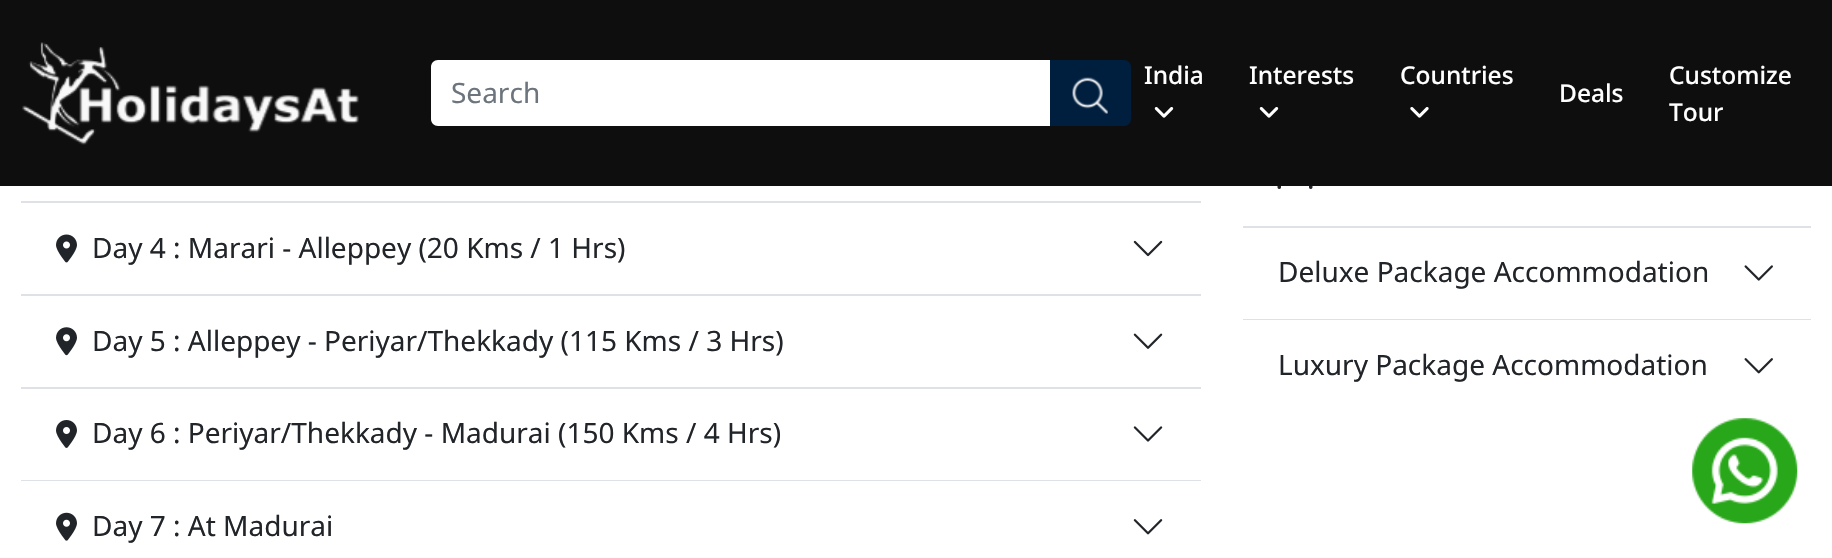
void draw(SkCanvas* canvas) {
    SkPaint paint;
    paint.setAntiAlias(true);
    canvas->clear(0xFFFFFFFF);
    paint.setColor(0xFF0E0E0E);
    canvas->drawRect(SkRect::MakeXYWH(0, 0, 1832, 186), paint);
    canvas->drawImageRect(SkImages::DeferredFromEncodedData(SkData::MakeFromFileName("img1.png")), SkRect::MakeXYWH(22, 42, 337, 103), SkSamplingOptions());
    paint.setColor(0xFFFFFFFF);
    canvas->drawPath(SkPathBuilder().moveTo(438, 60).lineTo(1050, 60).lineTo(1050, 126).lineTo(438, 126).cubicTo(434, 126, 431, 123, 431, 119).lineTo(431, 67).cubicTo(431, 63, 434, 60, 438, 60).close().detach(), paint);
    SkFont font1(fontMgr->matchFamilyStyle("Noto Sans", SkFontStyle::Normal()), 28);
    font1.setSubpixel(true);
    paint.setColor(0xFF6C757D);
    canvas->drawString("Search", 451, 103, font1, paint);
    paint.setColor(0xFF001E3E);
    canvas->drawPath(SkPathBuilder().moveTo(1051, 61).lineTo(1124, 61).cubicTo(1127.5f, 61, 1130, 63.5f, 1130, 67).lineTo(1130, 119).cubicTo(1130, 122.5f, 1127.5f, 125, 1124, 125).lineTo(1051, 125).close().detach(), paint);
    paint.setStyle(SkPaint::kStroke_Style);
    paint.setStrokeWidth(2);
    canvas->drawPath(SkPathBuilder().moveTo(1051, 61).lineTo(1124, 61).cubicTo(1127.5f, 61, 1130, 63.5f, 1130, 67).lineTo(1130, 119).cubicTo(1130, 122.5f, 1127.5f, 125, 1124, 125).lineTo(1051, 125).close().detach(), paint);
    canvas->drawImageRect(SkImages::DeferredFromEncodedData(SkData::MakeFromFileName("img2.png")), SkRect::MakeXYWH(1072, 77, 36, 37), SkSamplingOptions());
    SkFont font2(fontMgr->matchFamilyStyle("Noto Sans", SkFontStyle(500, SkFontStyle::kNormal_Width, SkFontStyle::kUpright_Slant)), 24.5f);
    font2.setSubpixel(true);
    paint.setStyle(SkPaint::kFill_Style);
    paint.setColor(0xFFFFFFFF);
    canvas->drawString("India", 1144, 84, font2, paint);
    canvas->drawImageRect(SkImages::DeferredFromEncodedData(SkData::MakeFromFileName("img3.png")), SkRect::MakeXYWH(1154, 107, 20, 11), SkSamplingOptions());
    canvas->drawString("Interests", 1249, 84, font2, paint);
    canvas->drawImageRect(SkImages::DeferredFromEncodedData(SkData::MakeFromFileName("img3.png")), SkRect::MakeXYWH(1259, 107, 20, 11), SkSamplingOptions());
    canvas->drawString("Countries", 1400, 84, font2, paint);
    canvas->drawImageRect(SkImages::DeferredFromEncodedData(SkData::MakeFromFileName("img4.png")), SkRect::MakeXYWH(1410, 107, 19, 11), SkSamplingOptions());
    canvas->drawString("Customize", 1669, 84, font2, paint);
    canvas->drawString("Tour", 1669, 121, font2, paint);
    canvas->drawString("Deals", 1559, 102, font2, paint);
    paint.setColor(0xFFDEE2E6);
    canvas->drawRect(SkRect::MakeXYWH(21, 201, 1180, 2), paint);
    canvas->drawRect(SkRect::MakeXYWH(21, 294, 1180, 2), paint);
    canvas->drawImageRect(SkImages::DeferredFromEncodedData(SkData::MakeFromFileName("img5.png")), SkRect::MakeXYWH(56, 234, 21, 29), SkSamplingOptions());
    paint.setColor(0xFF212529);
    canvas->drawString("Day 4 : Marari - Alleppey (20 Kms / 1 Hrs)", 92, 258, font1, paint);
    canvas->drawImageRect(SkImages::DeferredFromEncodedData(SkData::MakeFromFileName("img6.png")), SkRect::MakeXYWH(1133, 240, 30, 17), SkSamplingOptions());
    paint.setColor(0xFFDEE2E6);
    canvas->drawRect(SkRect::MakeXYWH(21, 387, 1180, 2), paint);
    canvas->drawImageRect(SkImages::DeferredFromEncodedData(SkData::MakeFromFileName("img7.png")), SkRect::MakeXYWH(56, 327, 21, 29), SkSamplingOptions());
    paint.setColor(0xFF212529);
    canvas->drawString("Day 5 : Alleppey - Periyar/Thekkady (115 Kms / 3 Hrs)", 92, 351, font1, paint);
    canvas->drawImageRect(SkImages::DeferredFromEncodedData(SkData::MakeFromFileName("img8.png")), SkRect::MakeXYWH(1133, 333, 30, 16), SkSamplingOptions());
    paint.setColor(0xFFDEE2E6);
    canvas->drawRect(SkRect::MakeXYWH(21, 480, 1180, 1), paint);
    canvas->drawImageRect(SkImages::DeferredFromEncodedData(SkData::MakeFromFileName("img9.png")), SkRect::MakeXYWH(56, 420, 21, 28), SkSamplingOptions());
    paint.setColor(0xFF212529);
    canvas->drawString("Day 6 : Periyar/Thekkady - Madurai (150 Kms / 4 Hrs)", 92, 443, font1, paint);
    canvas->drawImageRect(SkImages::DeferredFromEncodedData(SkData::MakeFromFileName("img10.png")), SkRect::MakeXYWH(1133, 426, 30, 16), SkSamplingOptions());
    canvas->drawImageRect(SkImages::DeferredFromEncodedData(SkData::MakeFromFileName("img11.png")), SkRect::MakeXYWH(56, 512, 21, 29), SkSamplingOptions());
    canvas->drawString("Day 7 : At Madurai", 92, 536, font1, paint);
    canvas->drawImageRect(SkImages::DeferredFromEncodedData(SkData::MakeFromFileName("img12.png")), SkRect::MakeXYWH(1133, 519, 30, 16), SkSamplingOptions());
    paint.setColor(0xFFDEE2E6);
    canvas->drawRect(SkRect::MakeXYWH(1243, 226, 568, 2), paint);
    canvas->drawImageRect(SkImages::DeferredFromEncodedData(SkData::MakeFromFileName("img13.png")), SkRect::MakeXYWH(1277, 186, 36, 3), SkSamplingOptions());
    canvas->drawRect(SkRect::MakeXYWH(1243, 319, 568, 1), paint);
    paint.setColor(0xFF212529);
    canvas->drawString("Deluxe Package Accommodation", 1278, 282, font1, paint);
    canvas->drawImageRect(SkImages::DeferredFromEncodedData(SkData::MakeFromFileName("img14.png")), SkRect::MakeXYWH(1744, 265, 29, 16), SkSamplingOptions());
    canvas->drawString("Luxury Package Accommodation", 1278, 375, font1, paint);
    canvas->drawImageRect(SkImages::DeferredFromEncodedData(SkData::MakeFromFileName("img15.png")), SkRect::MakeXYWH(1744, 358, 29, 16), SkSamplingOptions());
    canvas->drawImageRect(SkImages::DeferredFromEncodedData(SkData::MakeFromFileName("img16.png")), SkRect::MakeXYWH(1692, 418, 106, 106), SkSamplingOptions());
}
